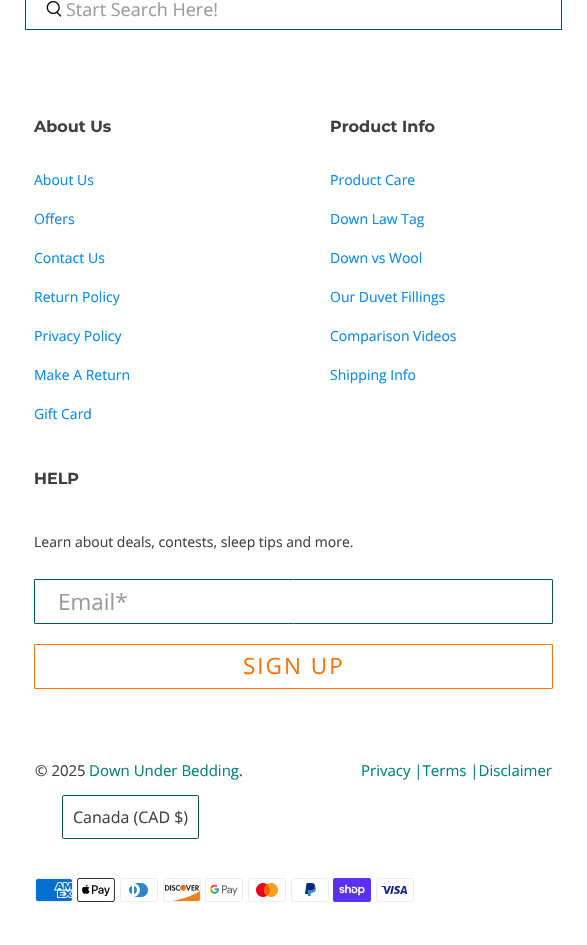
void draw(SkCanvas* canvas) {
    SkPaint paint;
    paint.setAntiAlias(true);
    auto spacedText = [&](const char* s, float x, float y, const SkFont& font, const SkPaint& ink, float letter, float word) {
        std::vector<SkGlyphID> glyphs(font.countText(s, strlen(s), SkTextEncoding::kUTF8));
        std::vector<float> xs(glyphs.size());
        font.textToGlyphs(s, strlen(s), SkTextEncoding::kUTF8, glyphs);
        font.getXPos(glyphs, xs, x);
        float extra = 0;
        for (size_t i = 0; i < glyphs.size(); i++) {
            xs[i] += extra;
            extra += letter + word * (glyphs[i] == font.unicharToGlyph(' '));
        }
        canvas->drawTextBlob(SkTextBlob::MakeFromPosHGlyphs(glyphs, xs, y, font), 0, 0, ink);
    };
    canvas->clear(0xFFFFFFFF);
    paint.setStyle(SkPaint::kStroke_Style);
    paint.setStrokeWidth(1);
    paint.setColor(0xFF045858);
    canvas->drawRect(SkRect::MakeXYWH(25.5f, -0.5f, 536, 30), paint);
    canvas->drawImageRect(SkImages::DeferredFromEncodedData(SkData::MakeFromFileName("img1.png")), SkRect::MakeXYWH(46, 1, 16, 16), SkSamplingOptions());
    SkFont font1(fontMgr->matchFamilyStyle("Open Sans", SkFontStyle::Normal()), 18);
    font1.setSubpixel(true);
    paint.setStyle(SkPaint::kFill_Style);
    paint.setColor(0xFF9B9B9B);
    canvas->drawString("Start Search Here!", 66, 16, font1, paint);
    SkFont font2(fontMgr->matchFamilyStyle("Montserrat", SkFontStyle::Bold()), 16);
    font2.setSubpixel(true);
    paint.setColor(0xFF404040);
    canvas->drawString("About Us", 34, 132, font2, paint);
    SkFont font3(fontMgr->matchFamilyStyle("Open Sans", SkFontStyle::Normal()), 14);
    font3.setSubpixel(true);
    paint.setColor(0xFF0888F1);
    canvas->drawString("About Us", 34, 185, font3, paint);
    canvas->drawString("Offers", 34, 224, font3, paint);
    canvas->drawString("Contact Us", 34, 263, font3, paint);
    canvas->drawString("Return Policy", 34, 302, font3, paint);
    canvas->drawString("Privacy Policy", 34, 341, font3, paint);
    canvas->drawString("Make A Return", 34, 380, font3, paint);
    canvas->drawString("Gift Card", 34, 419, font3, paint);
    paint.setColor(0xFF404040);
    canvas->drawString("Product Info", 330, 132, font2, paint);
    paint.setColor(0xFF0888F1);
    canvas->drawString("Product Care", 330, 185, font3, paint);
    canvas->drawString("Down Law Tag", 330, 224, font3, paint);
    canvas->drawString("Down vs Wool", 330, 263, font3, paint);
    canvas->drawString("Our Duvet Fillings", 330, 302, font3, paint);
    canvas->drawString("Comparison Videos", 330, 341, font3, paint);
    canvas->drawString("Shipping Info", 330, 380, font3, paint);
    paint.setColor(0xFF404040);
    canvas->drawString("HELP", 34, 484, font2, paint);
    canvas->drawString("Learn about deals, contests, sleep tips and more.", 34, 547, font3, paint);
    paint.setStyle(SkPaint::kStroke_Style);
    paint.setColor(0xFF045858);
    canvas->drawRoundRect(SkRect::MakeXYWH(34.5f, 579.5f, 518, 44), 0.5f, 0.5f, paint);
    SkFont font4(fontMgr->matchFamilyStyle("Open Sans", SkFontStyle::Normal()), 22.5f);
    font4.setSubpixel(true);
    paint.setStyle(SkPaint::kFill_Style);
    paint.setColor(0xFF9B9B9B);
    canvas->drawString("Email*", 58, 610, font4, paint);
    paint.setStyle(SkPaint::kStroke_Style);
    paint.setColor(0xFFF97205);
    canvas->drawRoundRect(SkRect::MakeXYWH(34.5f, 644.5f, 518, 44), 0.5f, 0.5f, paint);
    paint.setStyle(SkPaint::kFill_Style);
    spacedText("SIGN UP", 243, 674, font4, paint, 2, 0);
    SkFont font5(fontMgr->matchFamilyStyle("Open Sans", SkFontStyle::Normal()), 15);
    font5.setSubpixel(true);
    paint.setColor(0xFF404040);
    canvas->drawString("© 2025", 35, 776, font5, paint);
    paint.setColor(0xFF018080);
    canvas->drawString("Down Under Bedding", 89, 776, font5, paint);
    paint.setColor(0xFF404040);
    canvas->drawString(".", 239, 776, font5, paint);
    paint.setColor(0xFF018080);
    canvas->drawString("Privacy |Terms |Disclaimer", 361, 776, font5, paint);
    paint.setStyle(SkPaint::kStroke_Style);
    paint.setColor(0xFF045858);
    canvas->drawRoundRect(SkRect::MakeXYWH(62.5f, 795.5f, 136, 43), 1.5f, 1.5f, paint);
    paint.setStyle(SkPaint::kFill_Style);
    paint.setColor(0xFFFFFFFF);
    canvas->drawRoundRect(SkRect::MakeXYWH(63, 796, 135, 42), 2, 2, paint);
    SkFont font6(fontMgr->matchFamilyStyle("Open Sans", SkFontStyle::Normal()), 16);
    font6.setSubpixel(true);
    paint.setColor(0xFF404040);
    canvas->drawString("Canada (CAD $)", 73, 823, font6, paint);
    canvas->drawImageRect(SkImages::DeferredFromEncodedData(SkData::MakeFromFileName("img2.png")), SkRect::MakeXYWH(35, 878, 38, 24), SkSamplingOptions());
    canvas->drawImageRect(SkImages::DeferredFromEncodedData(SkData::MakeFromFileName("img3.png")), SkRect::MakeXYWH(77, 878, 38, 24), SkSamplingOptions());
    canvas->drawImageRect(SkImages::DeferredFromEncodedData(SkData::MakeFromFileName("img4.png")), SkRect::MakeXYWH(120, 878, 38, 24), SkSamplingOptions());
    canvas->drawImageRect(SkImages::DeferredFromEncodedData(SkData::MakeFromFileName("img5.png")), SkRect::MakeXYWH(163, 878, 38, 24), SkSamplingOptions());
    canvas->drawImageRect(SkImages::DeferredFromEncodedData(SkData::MakeFromFileName("img6.png")), SkRect::MakeXYWH(205, 878, 38, 24), SkSamplingOptions());
    canvas->drawImageRect(SkImages::DeferredFromEncodedData(SkData::MakeFromFileName("img7.png")), SkRect::MakeXYWH(248, 878, 38, 24), SkSamplingOptions());
    canvas->drawImageRect(SkImages::DeferredFromEncodedData(SkData::MakeFromFileName("img8.png")), SkRect::MakeXYWH(291, 878, 38, 24), SkSamplingOptions());
    canvas->drawImageRect(SkImages::DeferredFromEncodedData(SkData::MakeFromFileName("img9.png")), SkRect::MakeXYWH(333, 878, 38, 24), SkSamplingOptions());
    canvas->drawImageRect(SkImages::DeferredFromEncodedData(SkData::MakeFromFileName("img10.png")), SkRect::MakeXYWH(376, 878, 38, 24), SkSamplingOptions());
}
